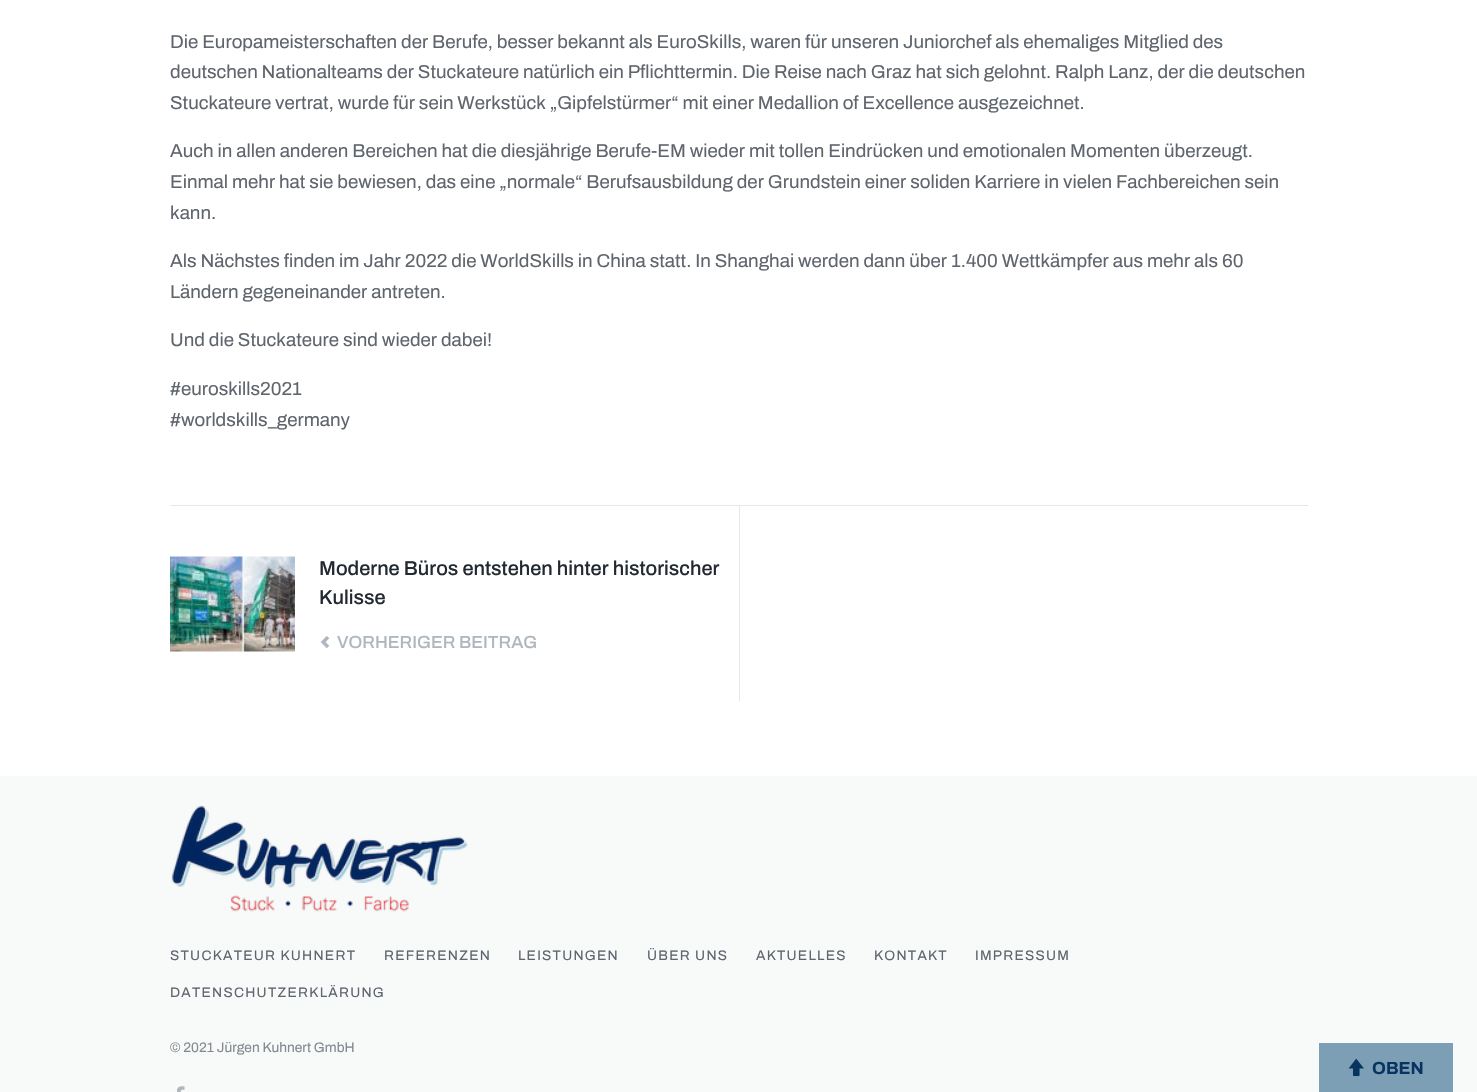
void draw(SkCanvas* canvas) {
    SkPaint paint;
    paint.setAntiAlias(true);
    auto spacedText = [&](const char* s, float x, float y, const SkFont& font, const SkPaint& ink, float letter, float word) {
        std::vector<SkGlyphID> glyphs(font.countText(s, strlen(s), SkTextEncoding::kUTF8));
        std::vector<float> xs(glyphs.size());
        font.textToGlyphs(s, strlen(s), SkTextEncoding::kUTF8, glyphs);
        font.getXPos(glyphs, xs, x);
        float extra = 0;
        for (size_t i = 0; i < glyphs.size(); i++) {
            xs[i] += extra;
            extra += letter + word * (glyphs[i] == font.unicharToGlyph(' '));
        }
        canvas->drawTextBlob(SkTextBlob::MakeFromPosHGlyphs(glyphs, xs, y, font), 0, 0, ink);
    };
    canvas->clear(0xFFFFFFFF);
    SkFont font1(fontMgr->matchFamilyStyle("Archivo", SkFontStyle::Normal()), 18.75f);
    font1.setSubpixel(true);
    paint.setColor(0xFF5F656D);
    canvas->drawString("Die Europameisterschaften der Berufe, besser bekannt als EuroSkills, waren für unseren Juniorchef als ehemaliges Mitglied des", 170, 48, font1, paint);
    canvas->drawString("deutschen Nationalteams der Stuckateure natürlich ein Pflichttermin. Die Reise nach Graz hat sich gelohnt. Ralph Lanz, der die deutschen", 170, 78, font1, paint);
    canvas->drawString("Stuckateure vertrat, wurde für sein Werkstück „Gipfelstürmer“ mit einer Medallion of Excellence ausgezeichnet.", 170, 109, font1, paint);
    canvas->drawString("Auch in allen anderen Bereichen hat die diesjährige Berufe-EM wieder mit tollen Eindrücken und emotionalen Momenten überzeugt.", 170, 157, font1, paint);
    canvas->drawString("Einmal mehr hat sie bewiesen, das eine „normale“ Berufsausbildung der Grundstein einer soliden Karriere in vielen Fachbereichen sein", 170, 188, font1, paint);
    canvas->drawString("kann.", 170, 219, font1, paint);
    canvas->drawString("Als Nächstes finden im Jahr 2022 die WorldSkills in China statt. In Shanghai werden dann über 1.400 Wettkämpfer aus mehr als 60", 170, 267, font1, paint);
    canvas->drawString("Ländern gegeneinander antreten.", 170, 298, font1, paint);
    canvas->drawString("Und die Stuckateure sind wieder dabei!", 170, 346, font1, paint);
    canvas->drawString("#euroskills2021", 170, 395, font1, paint);
    canvas->drawString("#worldskills_germany", 170, 426, font1, paint);
    paint.setColor(0xFFE6E8E8);
    canvas->drawRect(SkRect::MakeXYWH(170, 505, 1138, 1), paint);
    canvas->drawImageRect(SkImages::DeferredFromEncodedData(SkData::MakeFromFileName("img1.png")), SkRect::MakeXYWH(170, 556, 125, 96), SkSamplingOptions());
    SkFont font2(fontMgr->matchFamilyStyle("Archivo", SkFontStyle(500, SkFontStyle::kNormal_Width, SkFontStyle::kUpright_Slant)), 20);
    font2.setSubpixel(true);
    paint.setColor(0xFF222931);
    canvas->drawString("Moderne Büros entstehen hinter historischer", 319, 575, font2, paint);
    canvas->drawString("Kulisse", 319, 604, font2, paint);
    canvas->drawImageRect(SkImages::DeferredFromEncodedData(SkData::MakeFromFileName("img2.png")), SkRect::MakeXYWH(320, 636, 10, 13), SkSamplingOptions());
    SkFont font3(fontMgr->matchFamilyStyle("Archivo", SkFontStyle(500, SkFontStyle::kNormal_Width, SkFontStyle::kUpright_Slant)), 17.5f);
    font3.setSubpixel(true);
    paint.setColor(0xFFAEB6BE);
    canvas->drawString("VORHERIGER BEITRAG", 337, 648, font3, paint);
    paint.setColor(0xFFE6E8E8);
    canvas->drawRect(SkRect::MakeXYWH(739, 506, 1, 195), paint);
    paint.setColor(0xFFF8F9F9);
    canvas->drawRect(SkRect::MakeXYWH(0, 776, 1477, 316), paint);
    canvas->drawImageRect(SkImages::DeferredFromEncodedData(SkData::MakeFromFileName("img3.png")), SkRect::MakeXYWH(170, 805, 298, 107), SkSamplingOptions());
    SkFont font4(fontMgr->matchFamilyStyle("Archivo", SkFontStyle::Normal()), 13.75f);
    font4.setSubpixel(true);
    paint.setColor(0xFF5F656D);
    spacedText("STUCKATEUR KUHNERT", 170, 960, font4, paint, 1.25f, 0);
    spacedText("REFERENZEN", 384, 960, font4, paint, 1.25f, 0);
    spacedText("LEISTUNGEN", 518, 960, font4, paint, 1.25f, 0);
    spacedText("ÜBER UNS", 647, 960, font4, paint, 1.25f, 0);
    spacedText("AKTUELLES", 756, 960, font4, paint, 1.25f, 0);
    spacedText("KONTAKT", 874, 960, font4, paint, 1.25f, 0);
    spacedText("IMPRESSUM", 975, 960, font4, paint, 1.25f, 0);
    spacedText("DATENSCHUTZERKLÄRUNG", 170, 997, font4, paint, 1.25f, 0);
    paint.setColor(0xFF848A90);
    canvas->drawString("© 2021 Jürgen Kuhnert GmbH", 170, 1052, font4, paint);
    canvas->drawImageRect(SkImages::DeferredFromEncodedData(SkData::MakeFromFileName("img4.png")), SkRect::MakeXYWH(177, 1086, 8, 6), SkSamplingOptions());
    paint.setColor(0xFF7D9FB6);
    canvas->drawRect(SkRect::MakeXYWH(1319, 1043, 134, 49), paint);
    canvas->drawImageRect(SkImages::DeferredFromEncodedData(SkData::MakeFromFileName("img5.png")), SkRect::MakeXYWH(1348, 1058, 16, 19), SkSamplingOptions());
    SkFont font5(fontMgr->matchFamilyStyle("Archivo", SkFontStyle::Bold()), 17.5f);
    font5.setSubpixel(true);
    paint.setColor(0xFF083460);
    canvas->drawString("OBEN", 1372, 1074, font5, paint);
}
